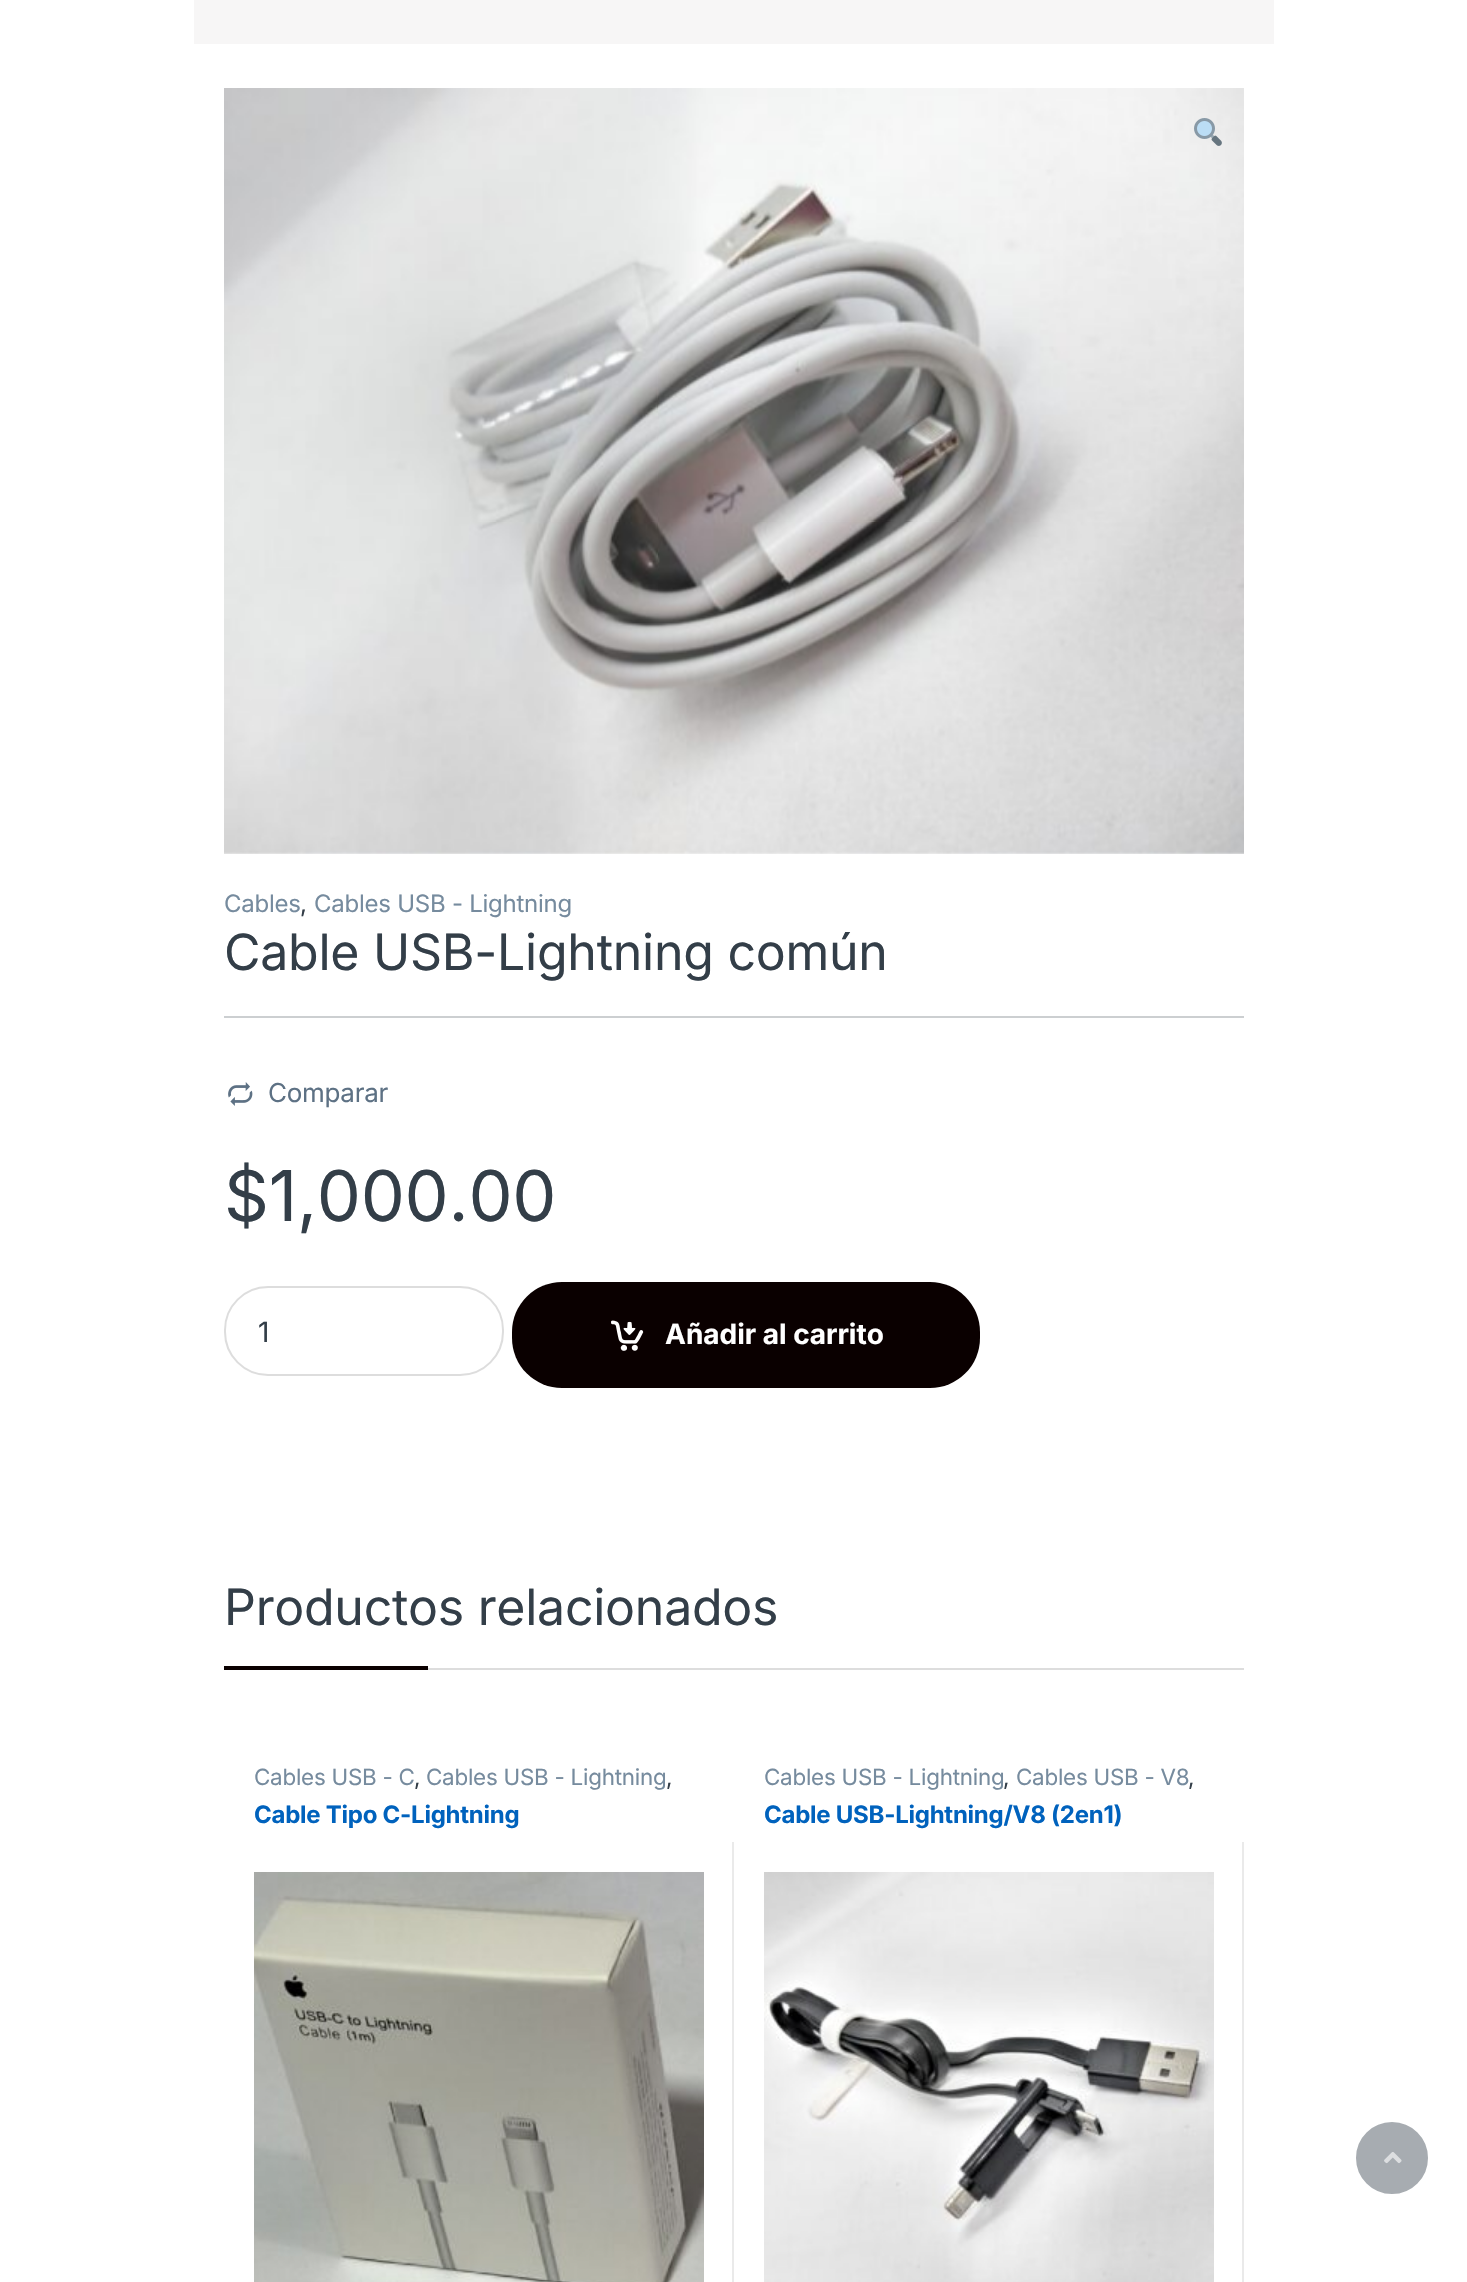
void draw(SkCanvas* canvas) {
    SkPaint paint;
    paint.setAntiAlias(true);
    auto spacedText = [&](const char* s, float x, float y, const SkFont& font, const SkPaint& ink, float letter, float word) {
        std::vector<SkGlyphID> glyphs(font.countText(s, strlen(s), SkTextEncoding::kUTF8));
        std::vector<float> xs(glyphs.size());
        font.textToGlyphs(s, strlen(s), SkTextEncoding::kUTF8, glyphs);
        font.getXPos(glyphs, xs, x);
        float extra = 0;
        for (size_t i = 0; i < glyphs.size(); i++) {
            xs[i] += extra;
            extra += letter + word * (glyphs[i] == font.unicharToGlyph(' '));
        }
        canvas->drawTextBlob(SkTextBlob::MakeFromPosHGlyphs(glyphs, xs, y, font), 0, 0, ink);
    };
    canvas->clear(0xFFFFFFFF);
    paint.setColor(0xFFF7F6F6);
    canvas->drawRect(SkRect::MakeXYWH(194, 0, 1080, 44), paint);
    canvas->drawImageRect(SkImages::DeferredFromEncodedData(SkData::MakeFromFileName("img1.png")), SkRect::MakeXYWH(224, 88, 1020, 766), SkSamplingOptions());
    canvas->drawImageRect(SkImages::DeferredFromEncodedData(SkData::MakeFromFileName("img2.png")), SkRect::MakeXYWH(1194, 118, 28, 28), SkSamplingOptions());
    SkFont font1(fontMgr->matchFamilyStyle("Inter", SkFontStyle::Normal()), 24);
    font1.setSubpixel(true);
    paint.setColor(0xFF768B9E);
    spacedText("Cables", 224, 912, font1, paint, -0.25f, 0);
    paint.setColor(0xFF333E48);
    spacedText(",", 300, 912, font1, paint, -0.25f, 0);
    paint.setColor(0xFF768B9E);
    spacedText("Cables USB - Lightning", 314, 912, font1, paint, -0.25f, 0);
    SkFont font2(fontMgr->matchFamilyStyle("Inter", SkFontStyle::Normal()), 50);
    font2.setSubpixel(true);
    paint.setColor(0xFF333E48);
    spacedText("Cable USB-Lightning común", 224, 970, font2, paint, -0.25f, 0);
    paint.setColor(0xFFCCCFD1);
    canvas->drawRect(SkRect::MakeXYWH(224, 1016, 1020, 2), paint);
    canvas->drawImageRect(SkImages::DeferredFromEncodedData(SkData::MakeFromFileName("img3.png")), SkRect::MakeXYWH(228, 1082, 25, 24), SkSamplingOptions());
    SkFont font3(fontMgr->matchFamilyStyle("Inter", SkFontStyle::Normal()), 26);
    font3.setSubpixel(true);
    paint.setColor(0xFF5D7184);
    spacedText("Comparar", 268, 1102, font3, paint, -0.25f, 0);
    SkFont font4(fontMgr->matchFamilyStyle("Inter", SkFontStyle::Normal()), 70);
    font4.setSubpixel(true);
    paint.setColor(0xFF333E48);
    spacedText("$1,000.00", 224, 1221, font4, paint, -0.25f, 0);
    paint.setStyle(SkPaint::kStroke_Style);
    paint.setStrokeWidth(2);
    paint.setColor(0xFFDDDDDD);
    canvas->drawRoundRect(SkRect::MakeXYWH(225, 1287, 278, 88), 43, 43, paint);
    SkFont font5(fontMgr->matchFamilyStyle("Inter", SkFontStyle::Normal()), 28);
    font5.setSubpixel(true);
    paint.setStyle(SkPaint::kFill_Style);
    paint.setColor(0xFF333E48);
    canvas->drawString("1", 258, 1342, font5, paint);
    paint.setColor(0xFF0A0000);
    canvas->drawRoundRect(SkRect::MakeXYWH(512, 1282, 468, 106), 50, 50, paint);
    canvas->drawImageRect(SkImages::DeferredFromEncodedData(SkData::MakeFromFileName("img4.png")), SkRect::MakeXYWH(611, 1320, 33, 31), SkSamplingOptions());
    SkFont font6(fontMgr->matchFamilyStyle("Inter", SkFontStyle::Bold()), 28);
    font6.setSubpixel(true);
    paint.setColor(0xFFFFFFFF);
    canvas->drawString("Añadir al carrito", 665, 1344, font6, paint);
    paint.setColor(0xFFDDDDDD);
    canvas->drawRect(SkRect::MakeXYWH(428, 1668, 816, 2), paint);
    paint.setColor(0xFF333E48);
    spacedText("Productos relacionados", 224, 1625, font2, paint, -0.25f, 0);
    paint.setColor(0xFF0A0000);
    canvas->drawRect(SkRect::MakeXYWH(224, 1666, 204, 4), paint);
    SkFont font7(fontMgr->matchFamilyStyle("Inter", SkFontStyle::Normal()), 22.4f);
    font7.setSubpixel(true);
    paint.setColor(0xFF768B9E);
    spacedText("Cables USB - C", 254, 1785, font7, paint, -0.25f, 0);
    paint.setColor(0xFF333E48);
    spacedText(",", 414, 1785, font7, paint, -0.25f, 0);
    paint.setColor(0xFF768B9E);
    spacedText("Cables USB - Lightning", 426, 1785, font7, paint, -0.25f, 0);
    paint.setColor(0xFF333E48);
    spacedText(",", 666, 1785, font7, paint, -0.25f, 0);
    SkFont font8(fontMgr->matchFamilyStyle("Inter", SkFontStyle::Bold()), 24);
    font8.setSubpixel(true);
    paint.setColor(0xFF0062BD);
    spacedText("Cable Tipo C-Lightning", 254, 1823, font8, paint, -0.25f, 0);
    canvas->drawImageRect(SkImages::DeferredFromEncodedData(SkData::MakeFromFileName("img5.png")), SkRect::MakeXYWH(254, 1872, 450, 410), SkSamplingOptions());
    paint.setColor(0xFFEAEAEA);
    canvas->drawRect(SkRect::MakeXYWH(732, 1842, 2, 440), paint);
    paint.setColor(0xFF768B9E);
    spacedText("Cables USB - Lightning", 764, 1785, font7, paint, -0.25f, 0);
    paint.setColor(0xFF333E48);
    spacedText(",", 1003, 1785, font7, paint, -0.25f, 0);
    paint.setColor(0xFF768B9E);
    spacedText("Cables USB - V8", 1016, 1785, font7, paint, -0.25f, 0);
    paint.setColor(0xFF333E48);
    spacedText(",", 1188, 1785, font7, paint, -0.25f, 0);
    paint.setColor(0xFF0062BD);
    spacedText("Cable USB-Lightning/V8 (2en1)", 764, 1823, font8, paint, -0.25f, 0);
    canvas->drawImageRect(SkImages::DeferredFromEncodedData(SkData::MakeFromFileName("img6.png")), SkRect::MakeXYWH(764, 1872, 450, 410), SkSamplingOptions());
    paint.setColor(0xFFEAEAEA);
    canvas->drawRect(SkRect::MakeXYWH(1242, 1842, 2, 440), paint);
    paint.setColor(0xFFA7ACB1);
    canvas->drawCircle(1392, 2158, 35, paint);
    paint.setStyle(SkPaint::kStroke_Style);
    canvas->drawCircle(1392, 2158, 35, paint);
    canvas->drawImageRect(SkImages::DeferredFromEncodedData(SkData::MakeFromFileName("img7.png")), SkRect::MakeXYWH(1384, 2152, 18, 12), SkSamplingOptions());
}
